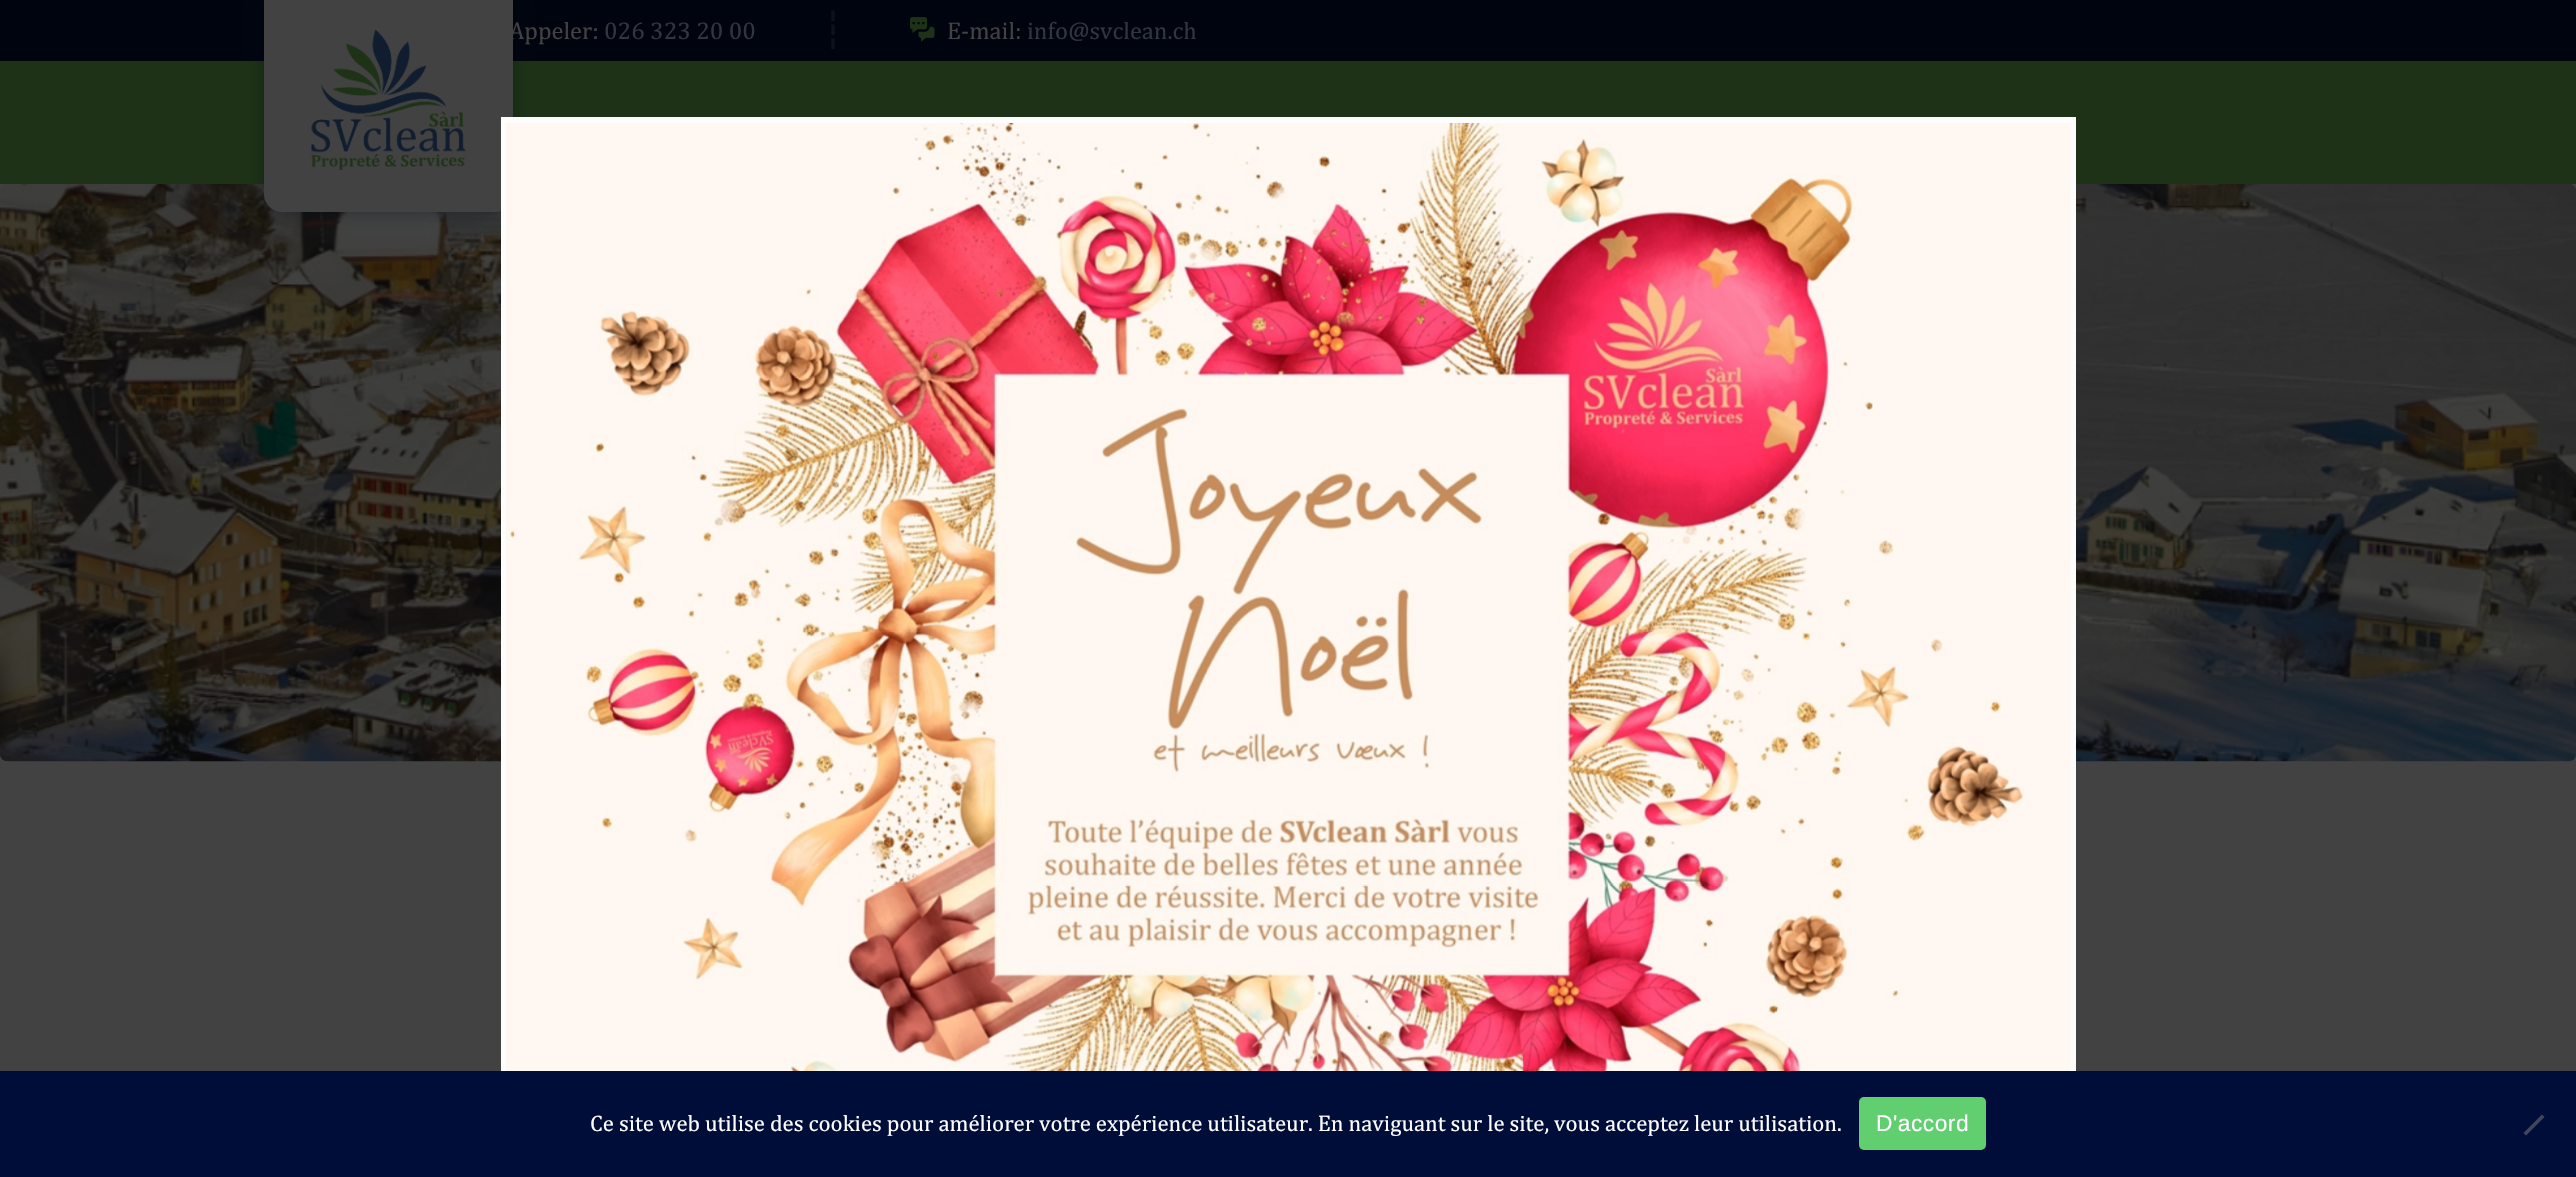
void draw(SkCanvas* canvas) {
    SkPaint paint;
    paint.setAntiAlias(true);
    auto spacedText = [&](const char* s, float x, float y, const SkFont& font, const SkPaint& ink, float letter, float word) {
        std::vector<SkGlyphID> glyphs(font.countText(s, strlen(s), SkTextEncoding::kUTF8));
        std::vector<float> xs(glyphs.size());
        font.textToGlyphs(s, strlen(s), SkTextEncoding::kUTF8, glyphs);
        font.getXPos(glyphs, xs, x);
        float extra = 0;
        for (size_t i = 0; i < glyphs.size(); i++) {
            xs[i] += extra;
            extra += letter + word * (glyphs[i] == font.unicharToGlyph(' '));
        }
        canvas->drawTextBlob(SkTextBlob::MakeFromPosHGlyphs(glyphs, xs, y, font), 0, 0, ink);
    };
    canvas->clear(0xFF424242);
    paint.setColor(0xFF1D3216);
    canvas->drawRect(SkRect::MakeXYWH(0, 61, 2576, 123), paint);
    paint.setColor(0xFF00040F);
    canvas->drawRect(SkRect::MakeXYWH(0, 0, 2576, 61), paint);
    canvas->drawImageRect(SkImages::DeferredFromEncodedData(SkData::MakeFromFileName("img3.png")), SkRect::MakeXYWH(0, 184, 2576, 578), SkSamplingOptions());
    paint.setColor(0x54010514);
    paint.setMaskFilter(SkMaskFilter::MakeBlur(kNormal_SkBlurStyle, 9));
    canvas->drawRoundRect(SkRect::MakeXYWH(264, -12, 249, 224), 18, 18, paint);
    paint.setMaskFilter(nullptr);
    paint.setColor(0xFF424242);
    canvas->drawPath(SkPathBuilder().moveTo(264, -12).lineTo(513, -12).lineTo(513, 194).cubicTo(513, 204, 505, 212, 495, 212).lineTo(282, 212).cubicTo(272, 212, 264, 204, 264, 194).close().detach(), paint);
    canvas->drawImageRect(SkImages::DeferredFromEncodedData(SkData::MakeFromFileName("img1.png")), SkRect::MakeXYWH(311, 29, 155, 141), SkSamplingOptions());
    paint.setStyle(SkPaint::kStroke_Style);
    paint.setStrokeWidth(5);
    paint.setColor(0xFF2D3614);
    canvas->drawCircle(1292, 184, 11.5f, paint);
    SkFont font1(fontMgr->matchFamilyStyle("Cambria", SkFontStyle::Normal()), 24.5f);
    font1.setSubpixel(true);
    paint.setStyle(SkPaint::kFill_Style);
    paint.setColor(0xFF424242);
    canvas->drawString("Appeler:", 509, 39, font1, paint);
    paint.setColor(0xFF32353D);
    canvas->drawString("026 323 20 00", 604, 39, font1, paint);
    paint.setStyle(SkPaint::kStroke_Style);
    paint.setStrokeWidth(3.5f);
    paint.setColor(0xFF0E1119);
    canvas->drawPath(SkPathBuilder().moveTo(833, 10.5f).lineTo(833, 21).moveTo(833, 24.5f).lineTo(833, 35).moveTo(833, 38.5f).lineTo(833, 49).detach(), paint);
    canvas->drawImageRect(SkImages::DeferredFromEncodedData(SkData::MakeFromFileName("img2.png")), SkRect::MakeXYWH(910, 17, 25, 25), SkSamplingOptions());
    paint.setStyle(SkPaint::kFill_Style);
    paint.setColor(0xFF424242);
    canvas->drawString("E-mail:", 947, 39, font1, paint);
    paint.setColor(0xFF32353D);
    canvas->drawString("info@svclean.ch", 1027, 39, font1, paint);
    canvas->drawImageRect(SkImages::DeferredFromEncodedData(SkData::MakeFromFileName("img5.png")), SkRect::MakeXYWH(1160, 945, 20, 19), SkSamplingOptions());
    canvas->drawImageRect(SkImages::DeferredFromEncodedData(SkData::MakeFromFileName("img4.png")), SkRect::MakeXYWH(1134, 954, 30, 30), SkSamplingOptions());
    canvas->drawImageRect(SkImages::DeferredFromEncodedData(SkData::MakeFromFileName("img6.png")), SkRect::MakeXYWH(1164, 963, 30, 29), SkSamplingOptions());
    paint.setColor(0xFCFFFFFF);
    canvas->drawRect(SkRect::MakeXYWH(501, 117, 1575, 954), paint);
    canvas->drawImageRect(SkImages::DeferredFromEncodedData(SkData::MakeFromFileName("img7.png")), SkRect::MakeXYWH(506, 123, 1565, 948), SkSamplingOptions());
    paint.setColor(0xFF000D39);
    canvas->drawRect(SkRect::MakeXYWH(0, 1071, 2576, 106), paint);
    SkFont font2(fontMgr->matchFamilyStyle("Cambria", SkFontStyle::Normal()), 22.75f);
    font2.setSubpixel(true);
    paint.setColor(0xFFFFFFFF);
    canvas->drawString("Ce site web utilise des cookies pour améliorer votre expérience utilisateur. En naviguant sur le site, vous acceptez leur utilisation.", 590, 1131, font2, paint);
    paint.setColor(0xFF61CE70);
    canvas->drawRoundRect(SkRect::MakeXYWH(1859, 1097, 127, 53), 5, 5, paint);
    SkFont font3(fontMgr->matchFamilyStyle("Liberation Sans", SkFontStyle::Normal()), 22.75f);
    font3.setSubpixel(true);
    paint.setColor(0xFFFFFFFF);
    spacedText("D'accord", 1876, 1131, font3, paint, 0.5f, 0);
    paint.setColor(0xFF40475D);
    canvas->drawPath(SkPathBuilder().moveTo(2542, 1114.5f).lineTo(2544.5f, 1117).lineTo(2526, 1135.5f).lineTo(2523.5f, 1133).close().detach(), paint);
}
